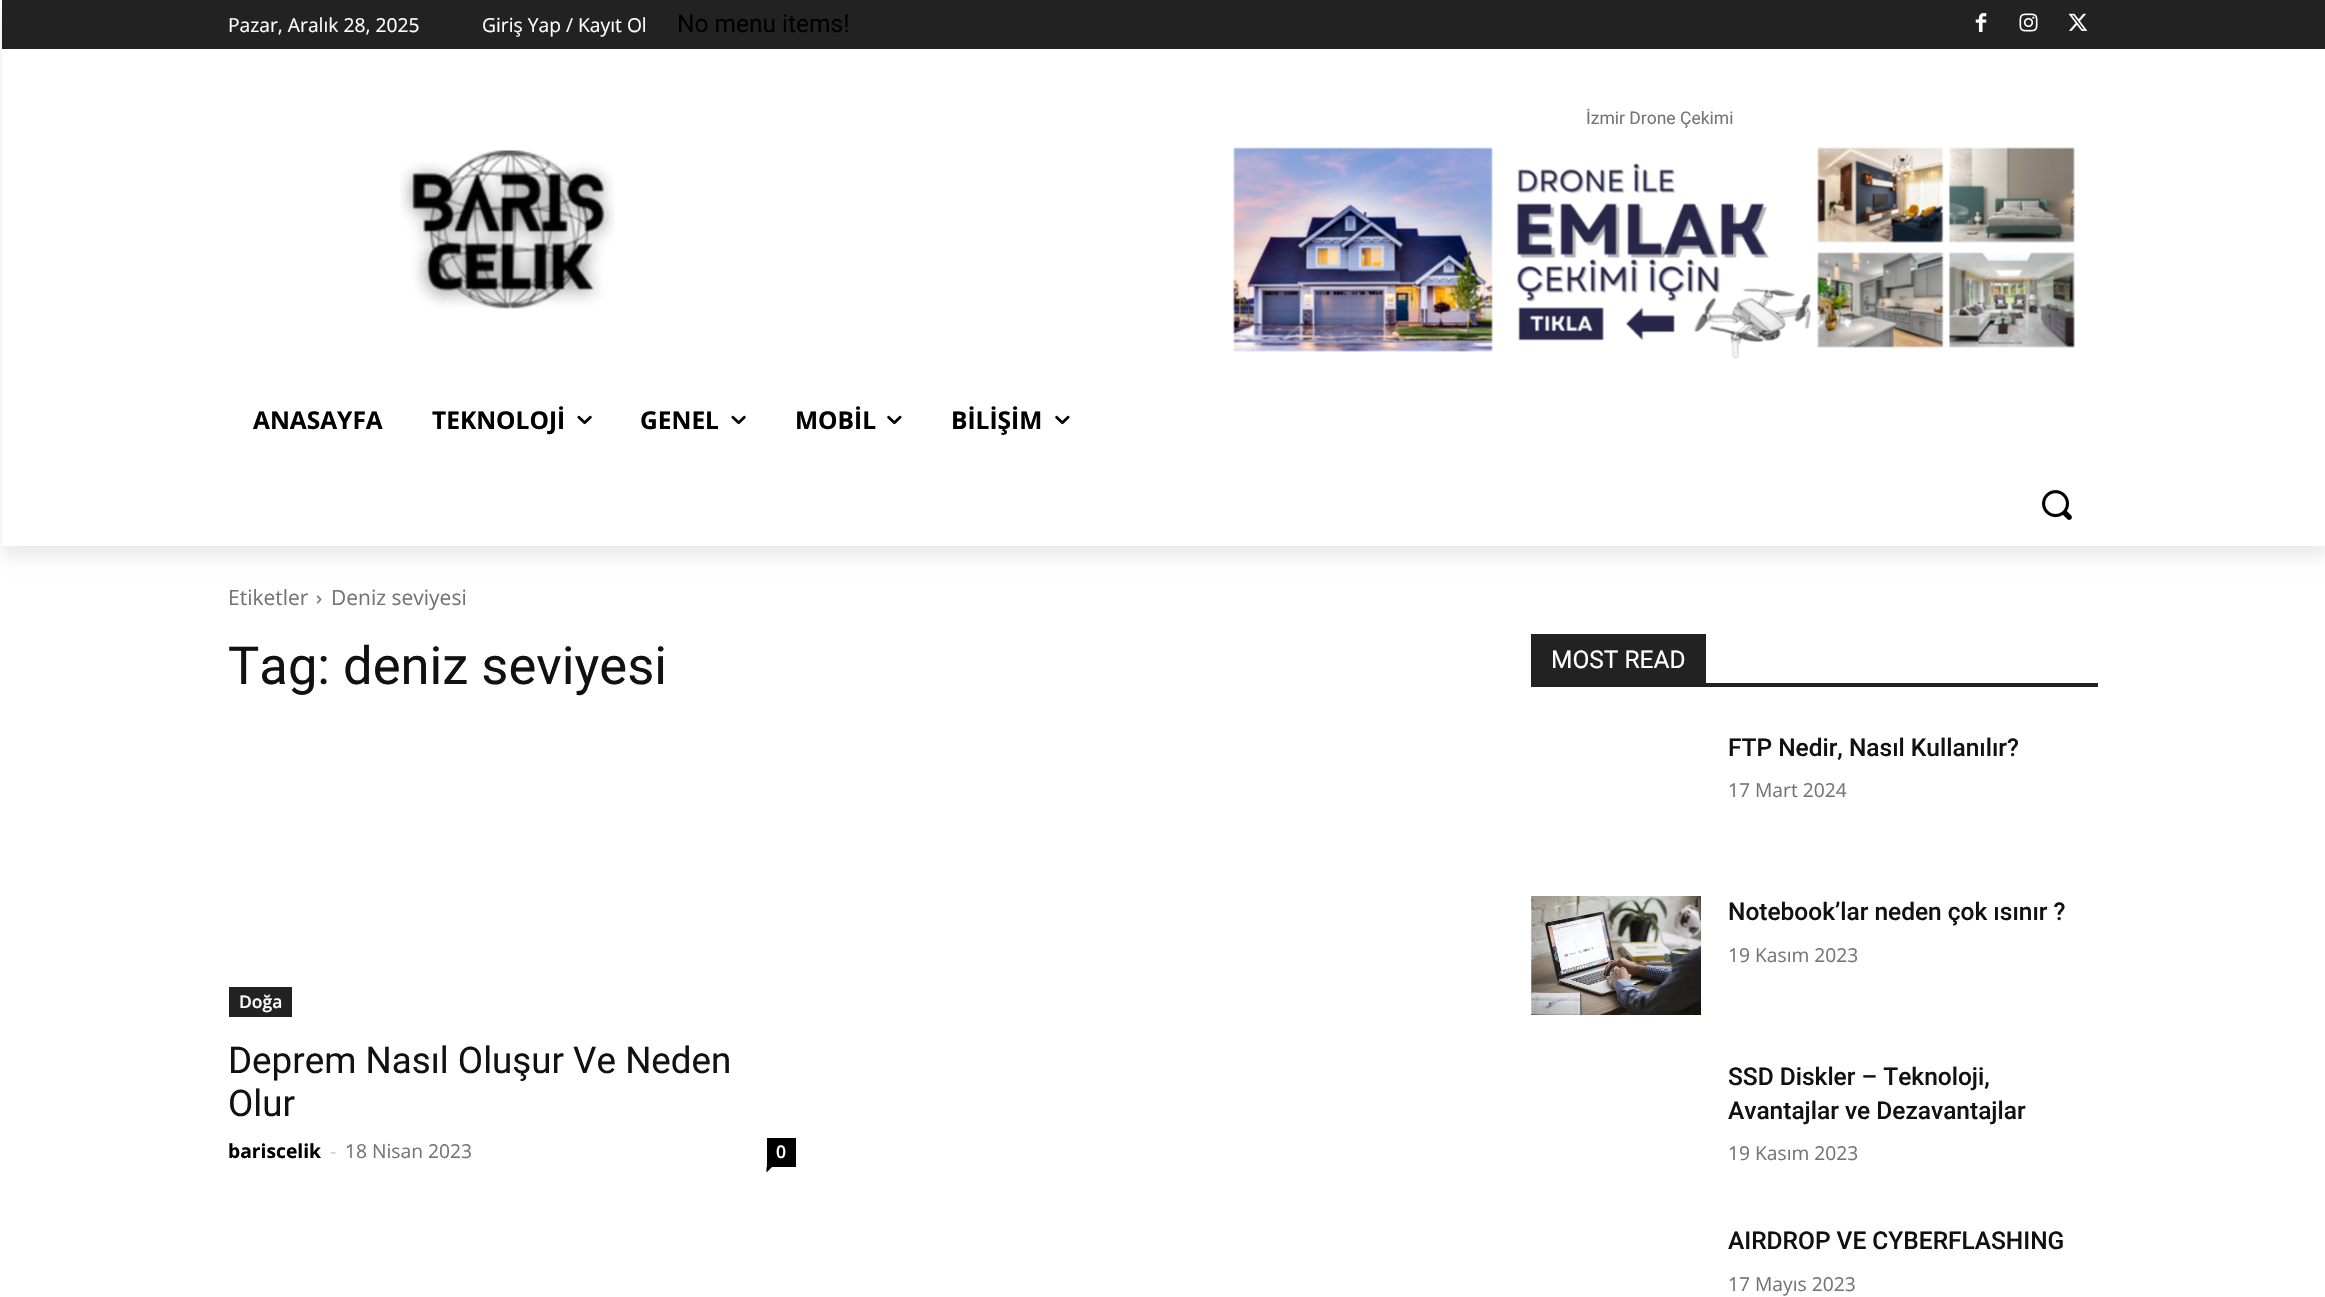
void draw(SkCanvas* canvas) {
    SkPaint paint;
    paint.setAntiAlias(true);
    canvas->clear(0xFFFFFFFF);
    paint.setColor(0xFF222222);
    canvas->drawRect(SkRect::MakeXYWH(2, 0, 2323, 49), paint);
    canvas->drawImageRect(SkImages::DeferredFromEncodedData(SkData::MakeFromFileName("img1.png")), SkRect::MakeXYWH(1975, 13, 12, 19), SkSamplingOptions());
    canvas->drawImageRect(SkImages::DeferredFromEncodedData(SkData::MakeFromFileName("img2.png")), SkRect::MakeXYWH(2019, 13, 19, 19), SkSamplingOptions());
    canvas->drawImageRect(SkImages::DeferredFromEncodedData(SkData::MakeFromFileName("img3.png")), SkRect::MakeXYWH(2068, 13, 20, 18), SkSamplingOptions());
    canvas->drawImageRect(SkImages::DeferredFromEncodedData(SkData::MakeFromFileName("img4.png")), SkRect::MakeXYWH(1232, 147, 843, 212), SkSamplingOptions());
    canvas->drawImageRect(SkImages::DeferredFromEncodedData(SkData::MakeFromFileName("img5.png")), SkRect::MakeXYWH(400, 150, 215, 159), SkSamplingOptions());
    canvas->save();
    canvas->clipPath(SkPathBuilder(SkPathFillType::kEvenOdd).moveTo(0, 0).lineTo(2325, 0).lineTo(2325, 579).lineTo(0, 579).close().moveTo(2, 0).lineTo(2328, 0).lineTo(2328, 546).lineTo(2, 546).close().detach(), true);
    paint.setColor(0x14000000);
    paint.setMaskFilter(SkMaskFilter::MakeBlur(kNormal_SkBlurStyle, 7));
    canvas->drawRect(SkRect::MakeXYWH(2, 11, 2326, 546), paint);
    paint.setMaskFilter(nullptr);
    canvas->restore();
    SkFont font1(fontMgr->matchFamilyStyle("Open Sans", SkFontStyle::Normal()), 19.25f);
    font1.setSubpixel(true);
    paint.setColor(0xFFFFFFFF);
    canvas->drawString("Pazar, Aralık 28, 2025", 228, 32, font1, paint);
    canvas->drawString("Giriş Yap / Kayıt Ol", 482, 32, font1, paint);
    SkFont font2(fontMgr->matchFamilyStyle("Roboto", SkFontStyle::Normal()), 24.5f);
    font2.setSubpixel(true);
    paint.setColor(0xFF000000);
    canvas->drawString("No menu items!", 677, 32, font2, paint);
    SkFont font3(fontMgr->matchFamilyStyle("Roboto", SkFontStyle::Normal()), 17.5f);
    font3.setSubpixel(true);
    paint.setColor(0xFF747474);
    canvas->drawString("İzmir Drone Çekimi", 1586, 124, font3, paint);
    SkFont font4(fontMgr->matchFamilyStyle("Open Sans", SkFontStyle::Bold()), 24.5f);
    font4.setSubpixel(true);
    paint.setColor(0xFF000000);
    canvas->drawString("ANASAYFA", 253, 429, font4, paint);
    canvas->drawString("TEKNOLOJİ", 432, 429, font4, paint);
    canvas->drawImageRect(SkImages::DeferredFromEncodedData(SkData::MakeFromFileName("img6.png")), SkRect::MakeXYWH(577, 415, 15, 10), SkSamplingOptions());
    canvas->drawString("GENEL", 640, 429, font4, paint);
    canvas->drawImageRect(SkImages::DeferredFromEncodedData(SkData::MakeFromFileName("img6.png")), SkRect::MakeXYWH(731, 415, 15, 10), SkSamplingOptions());
    canvas->drawString("MOBİL", 795, 429, font4, paint);
    canvas->drawImageRect(SkImages::DeferredFromEncodedData(SkData::MakeFromFileName("img7.png")), SkRect::MakeXYWH(887, 415, 15, 10), SkSamplingOptions());
    canvas->drawString("BİLİŞİM", 951, 429, font4, paint);
    canvas->drawImageRect(SkImages::DeferredFromEncodedData(SkData::MakeFromFileName("img7.png")), SkRect::MakeXYWH(1055, 415, 15, 10), SkSamplingOptions());
    canvas->drawImageRect(SkImages::DeferredFromEncodedData(SkData::MakeFromFileName("img8.png")), SkRect::MakeXYWH(2042, 490, 30, 30), SkSamplingOptions());
    SkFont font5(fontMgr->matchFamilyStyle("Open Sans", SkFontStyle::Normal()), 21);
    font5.setSubpixel(true);
    paint.setColor(0xFF747474);
    canvas->drawString("Etiketler", 228, 605, font5, paint);
    canvas->drawImageRect(SkImages::DeferredFromEncodedData(SkData::MakeFromFileName("img9.png")), SkRect::MakeXYWH(316, 595, 6, 9), SkSamplingOptions());
    canvas->drawString("Deniz seviyesi", 331, 605, font5, paint);
    SkFont font6(fontMgr->matchFamilyStyle("Roboto", SkFontStyle::Normal()), 52.5f);
    font6.setSubpixel(true);
    paint.setColor(0xFF111111);
    canvas->drawString("Tag: deniz seviyesi", 228, 684, font6, paint);
    paint.setColor(0xFF222222);
    canvas->drawRect(SkRect::MakeXYWH(229, 987, 63, 30), paint);
    SkFont font7(fontMgr->matchFamilyStyle("Open Sans", SkFontStyle(600, SkFontStyle::kNormal_Width, SkFontStyle::kUpright_Slant)), 17.5f);
    font7.setSubpixel(true);
    paint.setColor(0xFFFFFFFF);
    canvas->drawString("Doğa", 239, 1008, font7, paint);
    SkFont font8(fontMgr->matchFamilyStyle("Roboto", SkFontStyle::Normal()), 36.75f);
    font8.setSubpixel(true);
    paint.setColor(0xFF111111);
    canvas->drawString("Deprem Nasıl Oluşur Ve Neden", 228, 1073, font8, paint);
    canvas->drawString("Olur", 228, 1116, font8, paint);
    SkFont font9(fontMgr->matchFamilyStyle("Open Sans", SkFontStyle::Bold()), 19.25f);
    font9.setSubpixel(true);
    paint.setColor(0xFF000000);
    canvas->drawString("bariscelik", 228, 1158, font9, paint);
    paint.setColor(0xFFCCCCCC);
    canvas->drawString("-", 330, 1158, font1, paint);
    paint.setColor(0xFF747474);
    canvas->drawString("18 Nisan 2023", 345, 1158, font1, paint);
    paint.setColor(0xFF000000);
    canvas->drawRect(SkRect::MakeXYWH(767, 1138, 29, 29), paint);
    paint.setColor(0xFFFFFFFF);
    canvas->drawString("0", 776, 1158, font7, paint);
    paint.setColor(0xFF000000);
    canvas->drawPath(SkPathBuilder().moveTo(766.5f, 1167).lineTo(772, 1167).lineTo(766.5f, 1172.5f).close().detach(), paint);
    paint.setColor(0xFF222222);
    canvas->drawRect(SkRect::MakeXYWH(1531, 683, 567, 4), paint);
    canvas->drawRect(SkRect::MakeXYWH(1531, 634, 175, 49), paint);
    paint.setColor(0xFFFFFFFF);
    canvas->drawString("MOST READ", 1551, 668, font2, paint);
    SkFont font10(fontMgr->matchFamilyStyle("Roboto", SkFontStyle(500, SkFontStyle::kNormal_Width, SkFontStyle::kUpright_Slant)), 24.5f);
    font10.setSubpixel(true);
    paint.setColor(0xFF111111);
    canvas->drawString("FTP Nedir, Nasıl Kullanılır?", 1728, 756, font10, paint);
    paint.setColor(0xFF747474);
    canvas->drawString("17 Mart 2024", 1728, 797, font1, paint);
    canvas->drawImageRect(SkImages::DeferredFromEncodedData(SkData::MakeFromFileName("img10.png")), SkRect::MakeXYWH(1531, 896, 170, 119), SkSamplingOptions());
    paint.setColor(0xFF111111);
    canvas->drawString("Notebook’lar neden çok ısınır ?", 1728, 920, font10, paint);
    paint.setColor(0xFF747474);
    canvas->drawString("19 Kasım 2023", 1728, 962, font1, paint);
    paint.setColor(0xFF111111);
    canvas->drawString("SSD Diskler – Teknoloji,", 1728, 1085, font10, paint);
    canvas->drawString("Avantajlar ve Dezavantajlar", 1728, 1119, font10, paint);
    paint.setColor(0xFF747474);
    canvas->drawString("19 Kasım 2023", 1728, 1160, font1, paint);
    paint.setColor(0xFF111111);
    canvas->drawString("AIRDROP VE CYBERFLASHING", 1728, 1249, font10, paint);
    paint.setColor(0xFF747474);
    canvas->drawString("17 Mayıs 2023", 1728, 1291, font1, paint);
}
